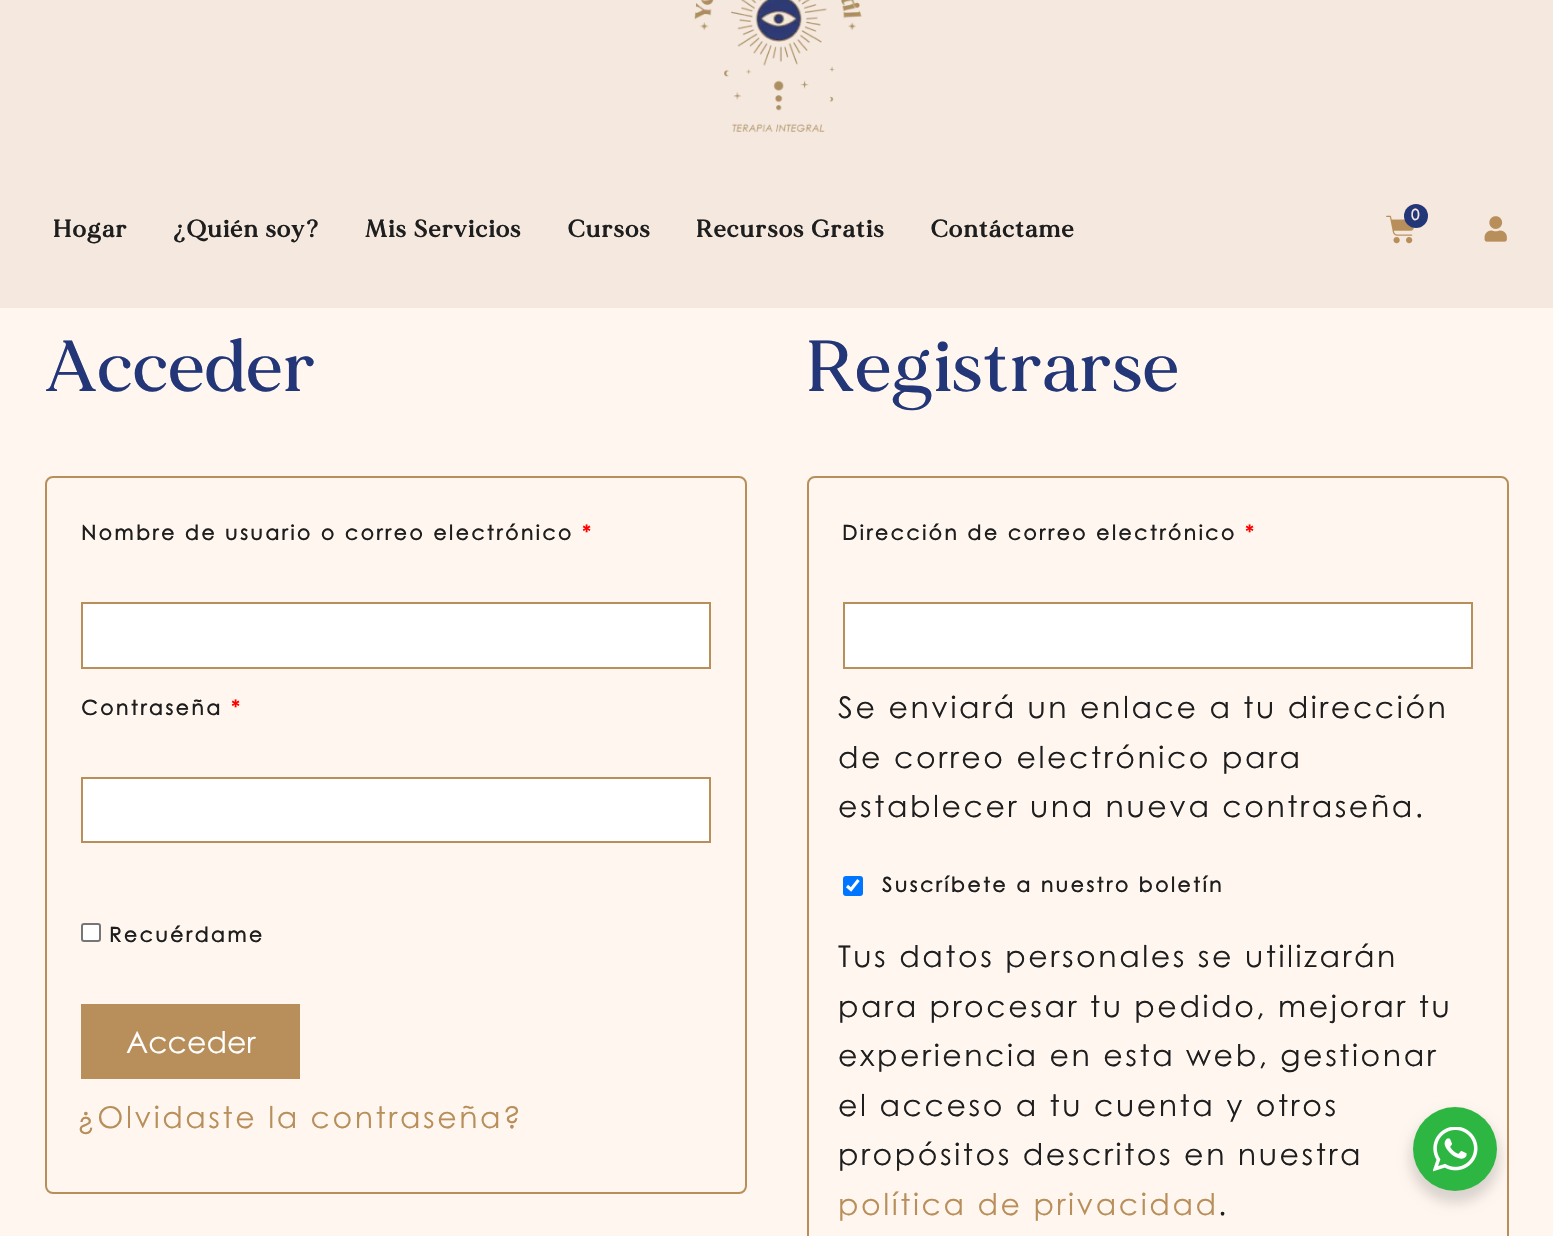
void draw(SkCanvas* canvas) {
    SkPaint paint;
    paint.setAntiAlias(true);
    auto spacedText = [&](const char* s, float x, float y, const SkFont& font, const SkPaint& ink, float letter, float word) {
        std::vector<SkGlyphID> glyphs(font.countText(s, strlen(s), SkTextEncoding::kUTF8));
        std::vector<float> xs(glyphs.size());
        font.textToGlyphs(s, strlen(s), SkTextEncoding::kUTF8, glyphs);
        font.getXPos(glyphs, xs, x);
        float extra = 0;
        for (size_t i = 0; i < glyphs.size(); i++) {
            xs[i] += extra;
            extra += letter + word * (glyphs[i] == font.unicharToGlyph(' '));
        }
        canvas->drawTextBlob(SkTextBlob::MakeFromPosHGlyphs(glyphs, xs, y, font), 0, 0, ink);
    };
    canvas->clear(0xFFFFF6EF);
    paint.setColor(0xFFF4E8DF);
    canvas->drawRect(SkRect::MakeXYWH(0, 0, 1553, 308), paint);
    canvas->drawImageRect(SkImages::DeferredFromEncodedData(SkData::MakeFromFileName("img1.png")), SkRect::MakeXYWH(694, 0, 168, 132), SkSamplingOptions());
    canvas->drawImageRect(SkImages::DeferredFromEncodedData(SkData::MakeFromFileName("img2.png")), SkRect::MakeXYWH(1386, 215, 28, 29), SkSamplingOptions());
    paint.setColor(0xFF233778);
    canvas->drawCircle(1416, 216, 12, paint);
    SkFont font1(fontMgr->matchFamilyStyle("Century Gothic", SkFontStyle::Bold()), 15);
    font1.setSubpixel(true);
    paint.setColor(0xFFF4E8DF);
    spacedText("0", 1411, 220, font1, paint, 1.75f, 0);
    canvas->drawImageRect(SkImages::DeferredFromEncodedData(SkData::MakeFromFileName("img3.png")), SkRect::MakeXYWH(1484, 216, 23, 26), SkSamplingOptions());
    SkFont font2(fontMgr->matchFamilyStyle("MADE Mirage", SkFontStyle::Bold()), 24);
    font2.setSubpixel(true);
    paint.setColor(0xFF1E1E1E);
    spacedText("Hogar", 53, 237, font2, paint, 1.75f, 0);
    spacedText("¿Quién soy?", 173, 237, font2, paint, 1.75f, 0);
    spacedText("Mis Servicios", 365, 237, font2, paint, 1.75f, 0);
    spacedText("Cursos", 568, 237, font2, paint, 1.75f, 0);
    spacedText("Recursos Gratis", 696, 237, font2, paint, 1.75f, 0);
    spacedText("Contáctame", 931, 237, font2, paint, 1.75f, 0);
    SkFont font3(fontMgr->matchFamilyStyle("MADE Mirage", SkFontStyle(500, SkFontStyle::kNormal_Width, SkFontStyle::kUpright_Slant)), 72);
    font3.setSubpixel(true);
    paint.setColor(0xFF233778);
    spacedText("Acceder", 45, 391, font3, paint, 1.75f, 0);
    paint.setStyle(SkPaint::kStroke_Style);
    paint.setStrokeWidth(2);
    paint.setColor(0xFFB88F5B);
    canvas->drawRoundRect(SkRect::MakeXYWH(46, 477, 700, 716), 7, 7, paint);
    SkFont font4(fontMgr->matchFamilyStyle("Century Gothic", SkFontStyle::Bold()), 20.25f);
    font4.setSubpixel(true);
    paint.setStyle(SkPaint::kFill_Style);
    paint.setColor(0xFF1E1E1E);
    spacedText("Nombre de usuario o correo electrónico", 81, 540, font4, paint, 2.55f, 0);
    paint.setColor(0xFFFF0000);
    spacedText("*", 582, 540, font4, paint, 2.55f, 0);
    paint.setColor(0xFFFFFFFF);
    canvas->drawRect(SkRect::MakeXYWH(82, 603, 628, 65), paint);
    paint.setStyle(SkPaint::kStroke_Style);
    paint.setColor(0xFFB88F5B);
    canvas->drawRect(SkRect::MakeXYWH(82, 603, 628, 65), paint);
    paint.setStyle(SkPaint::kFill_Style);
    paint.setColor(0xFF1E1E1E);
    spacedText("Contraseña", 81, 715, font4, paint, 2.55f, 0);
    paint.setColor(0xFFFF0000);
    spacedText("*", 231, 715, font4, paint, 2.55f, 0);
    paint.setColor(0xFFFFFFFF);
    canvas->drawRect(SkRect::MakeXYWH(82, 778, 628, 64), paint);
    paint.setStyle(SkPaint::kStroke_Style);
    paint.setColor(0xFFB88F5B);
    canvas->drawRect(SkRect::MakeXYWH(82, 778, 628, 64), paint);
    paint.setStyle(SkPaint::kFill_Style);
    paint.setColor(0xFFFFFFFF);
    canvas->drawRoundRect(SkRect::MakeXYWH(82, 924, 18, 17), 2, 2, paint);
    paint.setStyle(SkPaint::kStroke_Style);
    paint.setColor(0xFF767676);
    canvas->drawRoundRect(SkRect::MakeXYWH(82, 924, 18, 17), 2, 2, paint);
    paint.setStyle(SkPaint::kFill_Style);
    paint.setColor(0xFF1E1E1E);
    spacedText("Recuérdame", 109, 942, font4, paint, 2.55f, 0);
    paint.setColor(0xFFB88F5B);
    canvas->drawRect(SkRect::MakeXYWH(81, 1004, 219, 75), paint);
    SkFont font5(fontMgr->matchFamilyStyle("Century Gothic", SkFontStyle::Normal()), 30);
    font5.setSubpixel(true);
    paint.setColor(0xFFFFFFFF);
    canvas->drawString("Acceder", 126, 1053, font5, paint);
    paint.setColor(0xFFB88F5B);
    spacedText("¿Olvidaste la contraseña?", 77, 1128, font5, paint, 2.55f, 0);
    paint.setColor(0xFF233778);
    spacedText("Registrarse", 806, 391, font3, paint, 1.75f, 0);
    paint.setStyle(SkPaint::kStroke_Style);
    paint.setColor(0xFFB88F5B);
    canvas->drawRoundRect(SkRect::MakeXYWH(808, 477, 700, 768), 7, 7, paint);
    paint.setStyle(SkPaint::kFill_Style);
    paint.setColor(0xFF1E1E1E);
    spacedText("Dirección de correo electrónico", 842, 540, font4, paint, 2.55f, 0);
    paint.setColor(0xFFFF0000);
    spacedText("*", 1245, 540, font4, paint, 2.55f, 0);
    paint.setColor(0xFFFFFFFF);
    canvas->drawRect(SkRect::MakeXYWH(844, 603, 628, 65), paint);
    paint.setStyle(SkPaint::kStroke_Style);
    paint.setColor(0xFFB88F5B);
    canvas->drawRect(SkRect::MakeXYWH(844, 603, 628, 65), paint);
    paint.setStyle(SkPaint::kFill_Style);
    paint.setColor(0xFF1E1E1E);
    spacedText("Se enviará un enlace a tu dirección", 838, 718, font5, paint, 2.55f, 0);
    spacedText("de correo electrónico para", 838, 768, font5, paint, 2.55f, 0);
    spacedText("establecer una nueva contraseña.", 838, 817, font5, paint, 2.55f, 0);
    paint.setColor(0xFF0075FF);
    canvas->drawRoundRect(SkRect::MakeXYWH(843, 876, 20, 20), 3, 3, paint);
    paint.setStyle(SkPaint::kStroke_Style);
    paint.setStrokeWidth(3.1f);
    paint.setColor(0xFFFFFFFF);
    canvas->drawPath(SkPathBuilder().moveTo(847, 886).lineTo(851, 889.5f).lineTo(858.5f, 880).detach(), paint);
    paint.setStyle(SkPaint::kFill_Style);
    paint.setColor(0xFF1E1E1E);
    spacedText("Suscríbete a nuestro boletín", 882, 892, font4, paint, 2.55f, 0);
    spacedText("Tus datos personales se utilizarán", 838, 967, font5, paint, 2.55f, 0);
    spacedText("para procesar tu pedido, mejorar tu", 838, 1017, font5, paint, 2.55f, 0);
    spacedText("experiencia en esta web, gestionar", 838, 1066, font5, paint, 2.55f, 0);
    spacedText("el acceso a tu cuenta y otros", 838, 1116, font5, paint, 2.55f, 0);
    spacedText("propósitos descritos en nuestra", 838, 1165, font5, paint, 2.55f, 0);
    paint.setColor(0xFFB88F5B);
    spacedText("política de privacidad", 838, 1215, font5, paint, 2.55f, 0);
    paint.setColor(0xFF1E1E1E);
    spacedText(".", 1218, 1215, font5, paint, 2.55f, 0);
    paint.setColor(0x24000000);
    paint.setMaskFilter(SkMaskFilter::MakeBlur(kNormal_SkBlurStyle, 6));
    canvas->drawRoundRect(SkRect::MakeXYWH(1410, 1113, 90, 90), 45, 45, paint);
    paint.setMaskFilter(nullptr);
    paint.setColor(0xFF2DB742);
    canvas->drawCircle(1455, 1149, 42, paint);
    canvas->drawImageRect(SkImages::DeferredFromEncodedData(SkData::MakeFromFileName("img4.png")), SkRect::MakeXYWH(1433, 1127, 45, 45), SkSamplingOptions());
}
